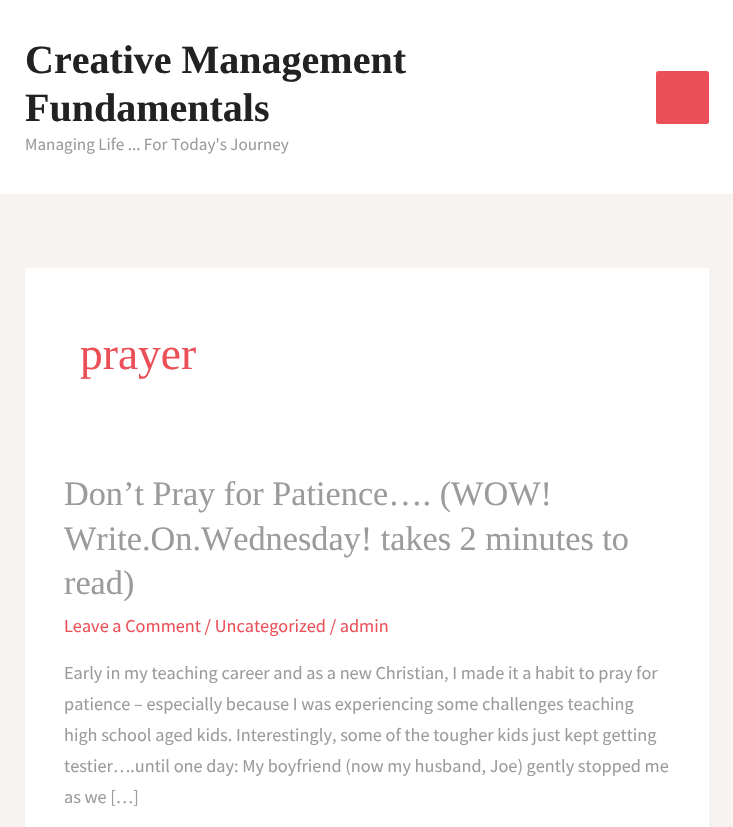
void draw(SkCanvas* canvas) {
    SkPaint paint;
    paint.setAntiAlias(true);
    canvas->clear(0xFFF6F3F1);
    paint.setColor(0xFFFFFFFF);
    canvas->drawRect(SkRect::MakeXYWH(0, 0, 733, 194), paint);
    SkFont font1(fontMgr->matchFamilyStyle("Liberation Serif", SkFontStyle::Bold()), 40);
    font1.setSubpixel(true);
    paint.setColor(0xFF222222);
    canvas->drawString("Creative Management", 25, 73, font1, paint);
    canvas->drawString("Fundamentals", 25, 121, font1, paint);
    SkFont font2(fontMgr->matchFamilyStyle("Source Sans Pro", SkFontStyle::Normal()), 17.1f);
    font2.setSubpixel(true);
    paint.setColor(0xFF9D9B99);
    canvas->drawString("Managing Life ... For Today's Journey", 25, 150, font2, paint);
    paint.setColor(0xFFEB5058);
    canvas->drawRoundRect(SkRect::MakeXYWH(656, 71, 53, 53), 2.5f, 2.5f, paint);
    paint.setColor(0xFFFFFFFF);
    canvas->drawRect(SkRect::MakeXYWH(25, 268, 684, 559), paint);
    SkFont font3(fontMgr->matchFamilyStyle("Liberation Serif", SkFontStyle::Normal()), 45.5f);
    font3.setSubpixel(true);
    paint.setColor(0xFFEB5058);
    canvas->drawString("prayer", 80, 369, font3, paint);
    SkFont font4(fontMgr->matchFamilyStyle("Liberation Serif", SkFontStyle::Normal()), 34.25f);
    font4.setSubpixel(true);
    paint.setColor(0xFF9D9B99);
    canvas->drawString("Don’t Pray for Patience…. (WOW!", 64, 505, font4, paint);
    canvas->drawString("Write.On.Wednesday! takes 2 minutes to", 64, 550, font4, paint);
    canvas->drawString("read)", 64, 594, font4, paint);
    SkFont font5(fontMgr->matchFamilyStyle("Source Sans Pro", SkFontStyle::Normal()), 18.25f);
    font5.setSubpixel(true);
    paint.setColor(0xFFEB5058);
    canvas->drawString("Leave a Comment / Uncategorized / admin", 64, 632, font5, paint);
    paint.setColor(0xFF9D9B99);
    canvas->drawString("Early in my teaching career and as a new Christian, I made it a habit to pray for", 64, 679, font5, paint);
    canvas->drawString("patience – especially because I was experiencing some challenges teaching", 64, 710, font5, paint);
    canvas->drawString("high school aged kids. Interestingly, some of the tougher kids just kept getting", 64, 741, font5, paint);
    canvas->drawString("testier….until one day: My boyfriend (now my husband, Joe) gently stopped me", 64, 772, font5, paint);
    canvas->drawString("as we […]", 64, 803, font5, paint);
}
